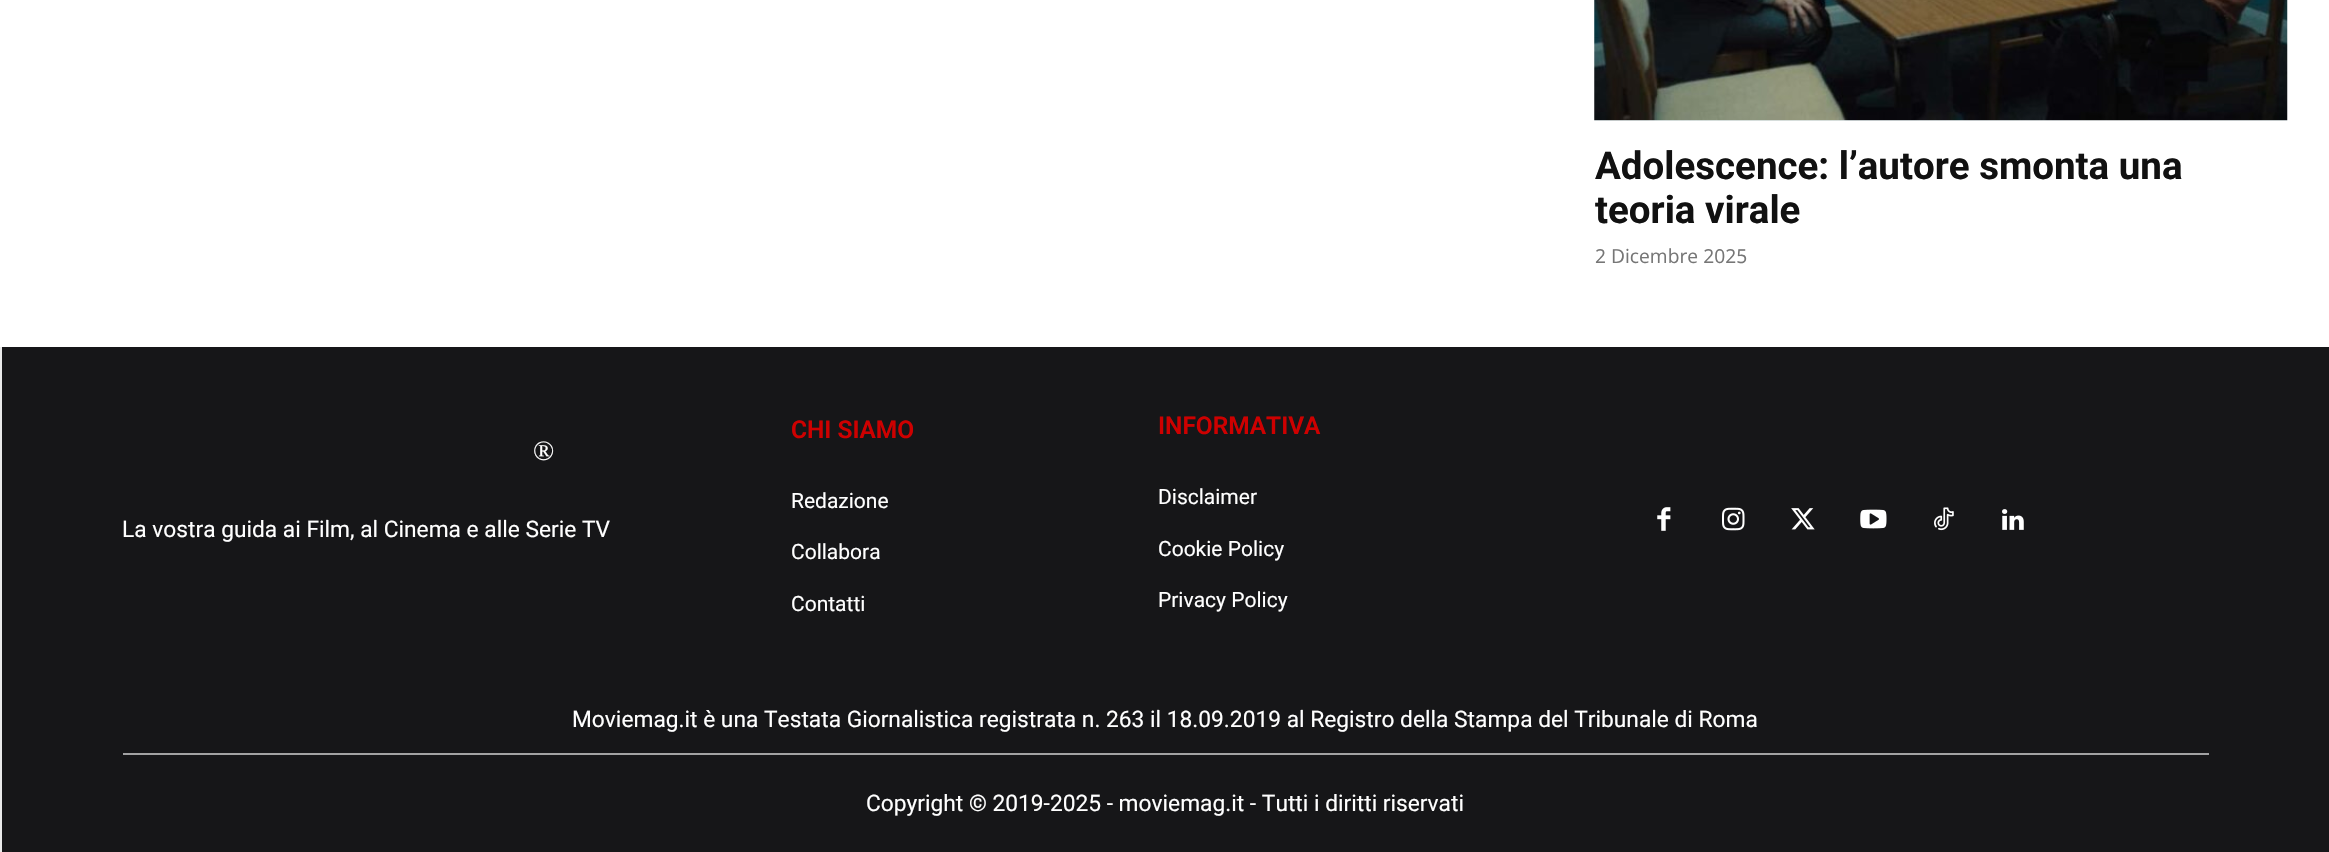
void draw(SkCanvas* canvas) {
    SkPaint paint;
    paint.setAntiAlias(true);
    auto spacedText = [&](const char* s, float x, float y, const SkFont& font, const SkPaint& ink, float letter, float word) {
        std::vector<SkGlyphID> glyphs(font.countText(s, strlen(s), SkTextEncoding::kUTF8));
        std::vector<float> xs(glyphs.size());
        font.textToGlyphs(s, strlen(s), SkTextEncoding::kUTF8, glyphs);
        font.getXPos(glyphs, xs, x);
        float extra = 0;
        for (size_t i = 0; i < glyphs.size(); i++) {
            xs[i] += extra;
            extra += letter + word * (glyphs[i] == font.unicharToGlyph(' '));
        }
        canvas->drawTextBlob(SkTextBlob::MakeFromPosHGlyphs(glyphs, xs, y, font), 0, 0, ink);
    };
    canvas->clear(0xFFFFFFFF);
    canvas->drawImageRect(SkImages::DeferredFromEncodedData(SkData::MakeFromFileName("img1.png")), SkRect::MakeXYWH(1594, 0, 694, 121), SkSamplingOptions());
    SkFont font1(fontMgr->matchFamilyStyle("Roboto", SkFontStyle::Bold()), 38.5f);
    font1.setSubpixel(true);
    paint.setColor(0xFF111111);
    canvas->drawString("Adolescence: l’autore smonta una", 1595, 179, font1, paint);
    canvas->drawString("teoria virale", 1595, 223, font1, paint);
    SkFont font2(fontMgr->matchFamilyStyle("Open Sans", SkFontStyle::Normal()), 19.25f);
    font2.setSubpixel(true);
    paint.setColor(0xFF767676);
    canvas->drawString("2 Dicembre 2025", 1595, 263, font2, paint);
    paint.setColor(0xFFEAEAEA);
    canvas->drawRect(SkRect::MakeXYWH(0, 347, 2, 505), paint);
    paint.setColor(0xFF161618);
    canvas->drawRect(SkRect::MakeXYWH(2, 347, 2327, 505), paint);
    SkFont font3(fontMgr->matchFamilyStyle("Liberation Serif", SkFontStyle::Normal()), 28);
    font3.setSubpixel(true);
    paint.setColor(0xFFFFFFFF);
    spacedText("®", 533, 460, font3, paint, 3, 0);
    SkFont font4(fontMgr->matchFamilyStyle("Roboto", SkFontStyle::Normal()), 22.75f);
    font4.setSubpixel(true);
    canvas->drawString("La vostra guida ai Film, al Cinema e alle Serie TV", 122, 537, font4, paint);
    SkFont font5(fontMgr->matchFamilyStyle("Roboto", SkFontStyle(600, SkFontStyle::kNormal_Width, SkFontStyle::kUpright_Slant)), 24.5f);
    font5.setSubpixel(true);
    paint.setColor(0xFFCE0000);
    canvas->drawString("CHI SIAMO", 791, 438, font5, paint);
    SkFont font6(fontMgr->matchFamilyStyle("Roboto", SkFontStyle::Normal()), 21);
    font6.setSubpixel(true);
    paint.setColor(0xFFFFFFFF);
    canvas->drawString("Redazione", 791, 508, font6, paint);
    canvas->drawString("Collabora", 791, 559, font6, paint);
    canvas->drawString("Contatti", 791, 611, font6, paint);
    paint.setColor(0xFFCE0000);
    canvas->drawString("INFORMATIVA", 1158, 434, font5, paint);
    paint.setColor(0xFFFFFFFF);
    canvas->drawString("Disclaimer", 1158, 504, font6, paint);
    canvas->drawString("Cookie Policy", 1158, 556, font6, paint);
    canvas->drawString("Privacy Policy", 1158, 607, font6, paint);
    canvas->drawImageRect(SkImages::DeferredFromEncodedData(SkData::MakeFromFileName("img2.png")), SkRect::MakeXYWH(1657, 507, 14, 24), SkSamplingOptions());
    canvas->drawImageRect(SkImages::DeferredFromEncodedData(SkData::MakeFromFileName("img3.png")), SkRect::MakeXYWH(1722, 507, 23, 24), SkSamplingOptions());
    canvas->drawImageRect(SkImages::DeferredFromEncodedData(SkData::MakeFromFileName("img4.png")), SkRect::MakeXYWH(1791, 508, 24, 22), SkSamplingOptions());
    canvas->drawImageRect(SkImages::DeferredFromEncodedData(SkData::MakeFromFileName("img5.png")), SkRect::MakeXYWH(1860, 509, 27, 20), SkSamplingOptions());
    canvas->drawImageRect(SkImages::DeferredFromEncodedData(SkData::MakeFromFileName("img6.png")), SkRect::MakeXYWH(1934, 507, 20, 24), SkSamplingOptions());
    canvas->drawImageRect(SkImages::DeferredFromEncodedData(SkData::MakeFromFileName("img7.png")), SkRect::MakeXYWH(2002, 509, 22, 21), SkSamplingOptions());
    canvas->drawString("Moviemag.it è una Testata Giornalistica registrata n. 263 il 18.09.2019 al Registro della Stampa del Tribunale di Roma", 572, 727, font4, paint);
    paint.setColor(0xFFA2A2A3);
    canvas->drawRect(SkRect::MakeXYWH(123, 753, 2086, 2), paint);
    paint.setColor(0xFFFFFFFF);
    canvas->drawString("Copyright © 2019-2025 - moviemag.it - Tutti i diritti riservati", 866, 811, font4, paint);
}
